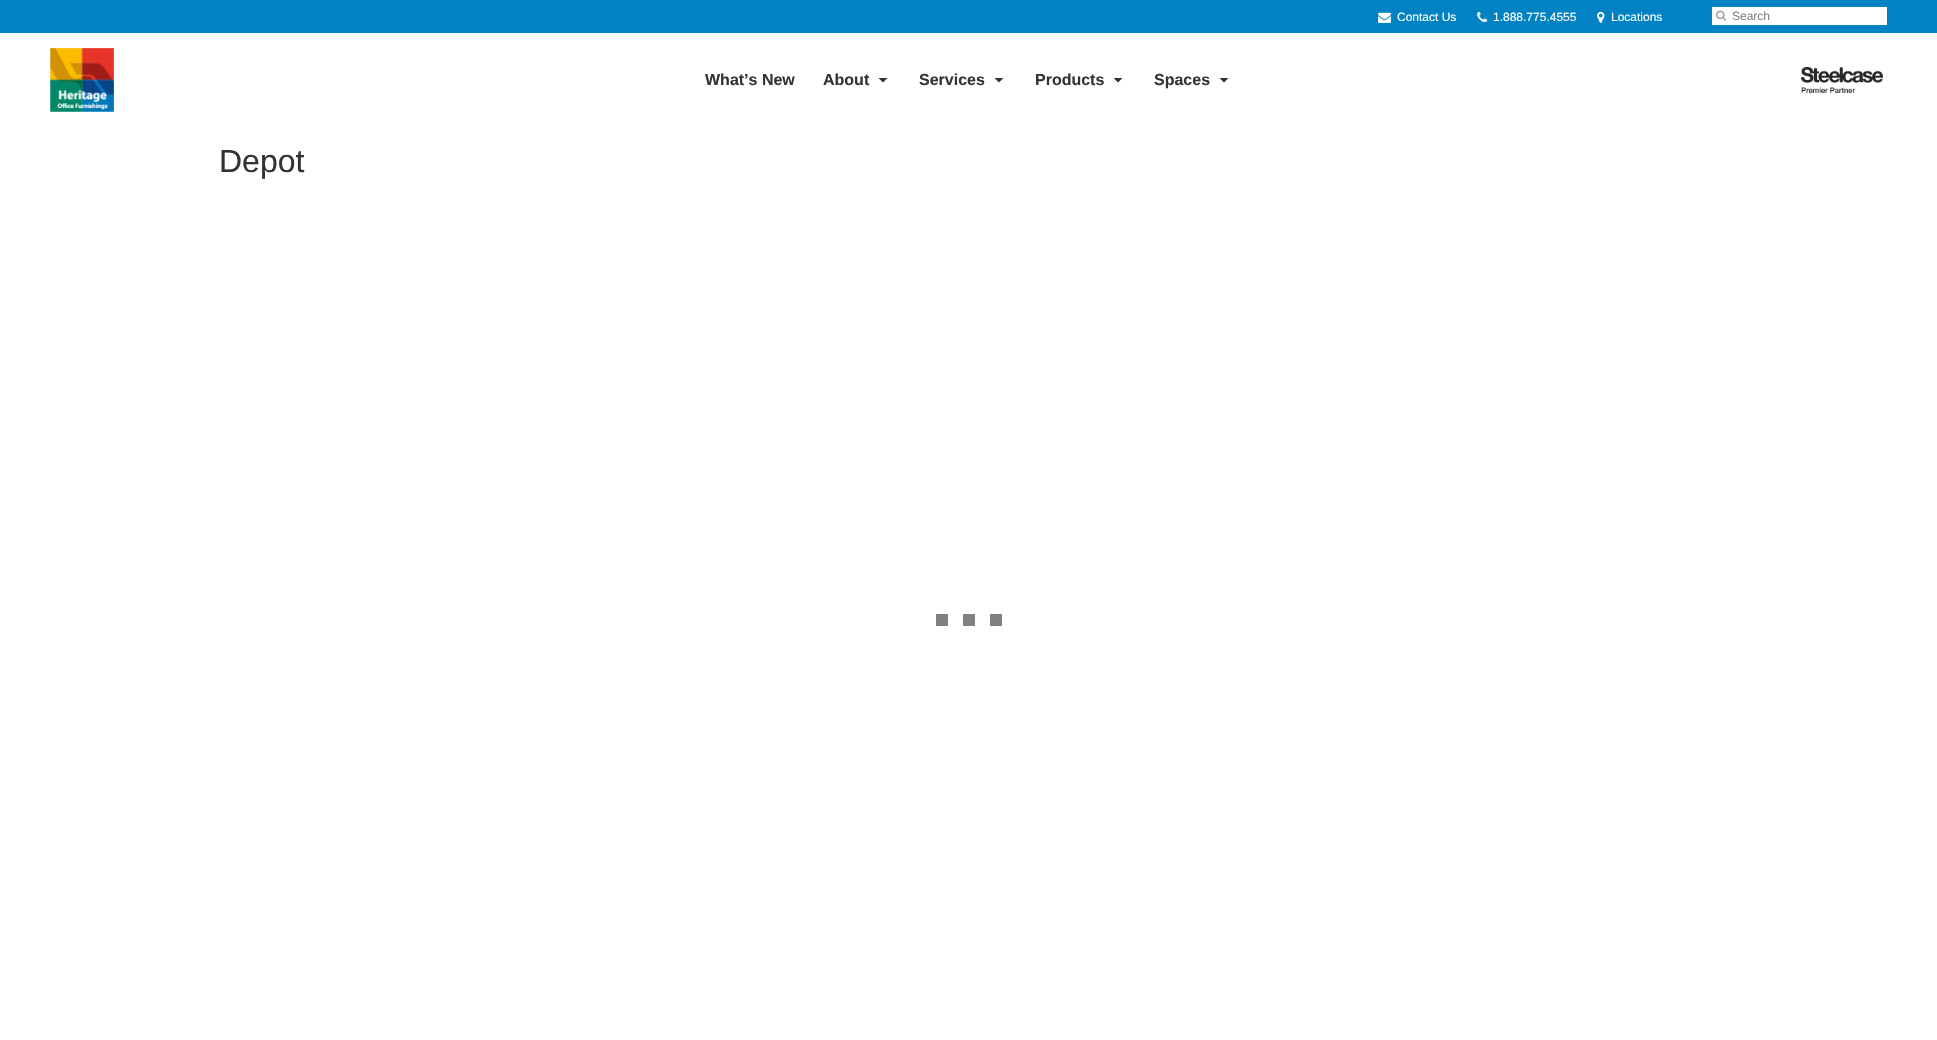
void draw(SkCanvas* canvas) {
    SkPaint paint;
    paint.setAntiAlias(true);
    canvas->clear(0xFFFFFFFF);
    paint.setColor(0xFF0082C4);
    canvas->drawRect(SkRect::MakeXYWH(0, 0, 1937, 33), paint);
    canvas->drawImageRect(SkImages::DeferredFromEncodedData(SkData::MakeFromFileName("img1.png")), SkRect::MakeXYWH(1378, 12, 13, 11), SkSamplingOptions());
    SkFont font1(fontMgr->matchFamilyStyle("Liberation Sans", SkFontStyle::Normal()), 12);
    font1.setSubpixel(true);
    paint.setColor(0xFFFFFFFF);
    canvas->drawString("Contact Us", 1397, 21, font1, paint);
    canvas->drawImageRect(SkImages::DeferredFromEncodedData(SkData::MakeFromFileName("img2.png")), SkRect::MakeXYWH(1477, 11, 11, 12), SkSamplingOptions());
    canvas->drawString("1.888.775.4555", 1493, 21, font1, paint);
    canvas->drawImageRect(SkImages::DeferredFromEncodedData(SkData::MakeFromFileName("img3.png")), SkRect::MakeXYWH(1597, 11, 8, 12), SkSamplingOptions());
    canvas->drawString("Locations", 1611, 21, font1, paint);
    canvas->drawRect(SkRect::MakeXYWH(1712, 7, 175, 18), paint);
    canvas->drawImageRect(SkImages::DeferredFromEncodedData(SkData::MakeFromFileName("img4.png")), SkRect::MakeXYWH(1716, 10, 11, 11), SkSamplingOptions());
    paint.setColor(0xFF7F8180);
    canvas->drawString("Search", 1732, 20, font1, paint);
    canvas->drawImageRect(SkImages::DeferredFromEncodedData(SkData::MakeFromFileName("img5.png")), SkRect::MakeXYWH(50, 48, 64, 64), SkSamplingOptions());
    SkFont font2(fontMgr->matchFamilyStyle("Liberation Sans", SkFontStyle::Bold()), 16);
    font2.setSubpixel(true);
    paint.setColor(0xFF333333);
    canvas->drawString("What’s New", 705, 85, font2, paint);
    canvas->drawString("About", 823, 85, font2, paint);
    canvas->drawPath(SkPathBuilder().moveTo(878.5f, 78).lineTo(883, 82.5f).lineTo(887.5f, 78).close().detach(), paint);
    canvas->drawString("Services", 919, 85, font2, paint);
    canvas->drawPath(SkPathBuilder().moveTo(994.5f, 78).lineTo(999, 82.5f).lineTo(1003.5f, 78).close().detach(), paint);
    canvas->drawString("Products", 1035, 85, font2, paint);
    canvas->drawPath(SkPathBuilder().moveTo(1113.5f, 78).lineTo(1118, 82.5f).lineTo(1122.5f, 78).close().detach(), paint);
    canvas->drawString("Spaces", 1154, 85, font2, paint);
    canvas->drawPath(SkPathBuilder().moveTo(1219.5f, 78).lineTo(1224, 82.5f).lineTo(1228.5f, 78).close().detach(), paint);
    canvas->drawImageRect(SkImages::DeferredFromEncodedData(SkData::MakeFromFileName("img6.png")), SkRect::MakeXYWH(1801, 67, 82, 26), SkSamplingOptions());
    SkFont font3(fontMgr->matchFamilyStyle("Liberation Sans", SkFontStyle::Normal()), 32);
    font3.setSubpixel(true);
    canvas->drawString("Depot", 219, 172, font3, paint);
    paint.setColor(0xFF808181);
    canvas->drawRect(SkRect::MakeXYWH(936, 614, 12, 12), paint);
    canvas->drawRect(SkRect::MakeXYWH(963, 614, 12, 12), paint);
    canvas->drawRect(SkRect::MakeXYWH(990, 614, 12, 12), paint);
}
